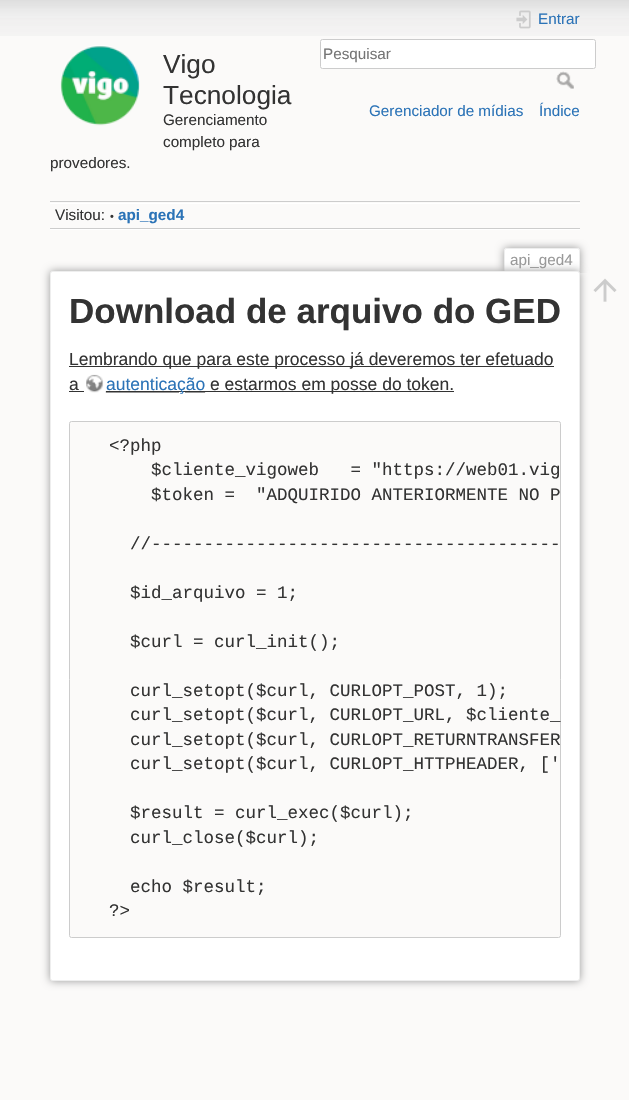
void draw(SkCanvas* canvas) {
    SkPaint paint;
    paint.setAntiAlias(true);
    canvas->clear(0xFFFBFAF9);
    canvas->drawImageRect(SkImages::DeferredFromEncodedData(SkData::MakeFromFileName("img1.png")), SkRect::MakeXYWH(0, 0, 629, 36), SkSamplingOptions());
    canvas->drawImageRect(SkImages::DeferredFromEncodedData(SkData::MakeFromFileName("img2.png")), SkRect::MakeXYWH(60, 45, 80, 81), SkSamplingOptions());
    SkFont font1(fontMgr->matchFamilyStyle("Liberation Sans", SkFontStyle::Normal()), 26.25f);
    font1.setSubpixel(true);
    paint.setColor(0xFF333333);
    canvas->drawString("Vigo", 163, 73, font1, paint);
    canvas->drawString("Tecnologia", 163, 104, font1, paint);
    SkFont font2(fontMgr->matchFamilyStyle("Liberation Sans", SkFontStyle::Normal()), 15.25f);
    font2.setSubpixel(true);
    canvas->drawString("Gerenciamento", 163, 125, font2, paint);
    canvas->drawString("completo para", 163, 147, font2, paint);
    canvas->drawString("provedores.", 50, 168, font2, paint);
    canvas->drawImageRect(SkImages::DeferredFromEncodedData(SkData::MakeFromFileName("img3.png")), SkRect::MakeXYWH(516, 10, 15, 19), SkSamplingOptions());
    paint.setColor(0xFF2B73B7);
    canvas->drawString("Entrar", 538, 24, font2, paint);
    paint.setColor(0xFFFFFFFF);
    canvas->drawRoundRect(SkRect::MakeXYWH(320.5f, 39.5f, 275, 29), 2, 2, paint);
    paint.setStyle(SkPaint::kStroke_Style);
    paint.setStrokeWidth(1);
    paint.setColor(0xFFCCCCCC);
    canvas->drawRoundRect(SkRect::MakeXYWH(320.5f, 39.5f, 275, 29), 2, 2, paint);
    paint.setStyle(SkPaint::kFill_Style);
    paint.setColor(0xFF757575);
    canvas->drawString("Pesquisar", 323, 59, font2, paint);
    canvas->drawImageRect(SkImages::DeferredFromEncodedData(SkData::MakeFromFileName("img4.png")), SkRect::MakeXYWH(556, 71, 18, 18), SkSamplingOptions());
    paint.setColor(0xFF2B73B7);
    canvas->drawString("Gerenciador de mídias", 369, 116, font2, paint);
    canvas->drawString("Índice", 539, 116, font2, paint);
    paint.setColor(0xFFCCCCCC);
    canvas->drawRect(SkRect::MakeXYWH(50, 201, 530, 1), paint);
    paint.setColor(0xFFFFFFFF);
    canvas->drawRect(SkRect::MakeXYWH(50, 229, 530, 1), paint);
    canvas->drawRect(SkRect::MakeXYWH(50, 203, 530, 1), paint);
    paint.setColor(0xFFCCCCCC);
    canvas->drawRect(SkRect::MakeXYWH(50, 228, 530, 1), paint);
    paint.setColor(0xFF333333);
    canvas->drawString("Visitou:", 55, 220, font2, paint);
    SkFont font3(fontMgr->matchFamilyStyle("Liberation Sans", SkFontStyle::Normal()), 11);
    font3.setSubpixel(true);
    canvas->drawString("•", 110, 220, font3, paint);
    SkFont font4(fontMgr->matchFamilyStyle("Liberation Sans", SkFontStyle::Bold()), 15.25f);
    font4.setSubpixel(true);
    paint.setColor(0xFF2B73B7);
    canvas->drawString("api_ged4", 118, 220, font4, paint);
    canvas->save();
    canvas->clipRect(SkRect::MakeXYWH(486, 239, 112, 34));
    paint.setColor(0xFF999999);
    paint.setMaskFilter(SkMaskFilter::MakeBlur(kNormal_SkBlurStyle, 4));
    canvas->drawRoundRect(SkRect::MakeXYWH(504, 248, 76, 25), 2.5f, 2.5f, paint);
    paint.setMaskFilter(nullptr);
    canvas->restore();
    paint.setColor(0xFFFFFFFF);
    canvas->drawPath(SkPathBuilder().moveTo(506, 249).lineTo(578, 249).cubicTo(578.5f, 249, 579, 249.5f, 579, 250).lineTo(579, 273).lineTo(505, 273).lineTo(505, 250).cubicTo(505, 249.5f, 505.5f, 249, 506, 249).close().detach(), paint);
    paint.setColor(0xFFEEEEEE);
    canvas->drawRect(SkRect::MakeXYWH(505, 248, 74, 1), paint);
    canvas->drawRect(SkRect::MakeXYWH(579, 249, 1, 24), paint);
    canvas->drawRect(SkRect::MakeXYWH(504, 249, 1, 24), paint);
    paint.setColor(0xFF999999);
    canvas->drawString("api_ged4", 510, 265, font2, paint);
    paint.setMaskFilter(SkMaskFilter::MakeBlur(kNormal_SkBlurStyle, 4.5f));
    canvas->drawRoundRect(SkRect::MakeXYWH(50, 271, 530, 710), 2.5f, 2.5f, paint);
    paint.setMaskFilter(nullptr);
    paint.setColor(0xFFFFFFFF);
    canvas->drawRoundRect(SkRect::MakeXYWH(50.5f, 271.5f, 529, 709), 2, 2, paint);
    paint.setStyle(SkPaint::kStroke_Style);
    paint.setColor(0xFFEEEEEE);
    canvas->drawRoundRect(SkRect::MakeXYWH(50.5f, 271.5f, 529, 709), 2, 2, paint);
    SkFont font5(fontMgr->matchFamilyStyle("Liberation Sans", SkFontStyle::Bold()), 35);
    font5.setSubpixel(true);
    paint.setStyle(SkPaint::kFill_Style);
    paint.setColor(0xFF333333);
    canvas->drawString("Download de arquivo do GED", 69, 323, font5, paint);
    canvas->drawRect(SkRect::MakeXYWH(69, 366, 485, 1), paint);
    SkFont font6(fontMgr->matchFamilyStyle("Liberation Sans", SkFontStyle::Normal()), 17.5f);
    font6.setSubpixel(true);
    canvas->drawString("Lembrando que para este processo já deveremos ter efetuado", 69, 365, font6, paint);
    canvas->drawImageRect(SkImages::DeferredFromEncodedData(SkData::MakeFromFileName("img5.png")), SkRect::MakeXYWH(86, 374, 120, 19), SkSamplingOptions());
    canvas->drawString("a", 69, 390, font6, paint);
    canvas->drawRect(SkRect::MakeXYWH(69, 391, 15, 1), paint);
    canvas->drawRect(SkRect::MakeXYWH(106, 391, 348, 1), paint);
    paint.setColor(0xFF2B73B7);
    canvas->drawString("autenticação", 106, 390, font6, paint);
    paint.setColor(0xFF333333);
    canvas->drawString("e estarmos em posse do token.", 210, 390, font6, paint);
    paint.setColor(0xFFFBFAF9);
    canvas->drawRoundRect(SkRect::MakeXYWH(69.5f, 421.5f, 491, 516), 2, 2, paint);
    paint.setStyle(SkPaint::kStroke_Style);
    paint.setColor(0xFFCCCCCC);
    canvas->drawRoundRect(SkRect::MakeXYWH(69.5f, 421.5f, 491, 516), 2, 2, paint);
    SkFont font7(fontMgr->matchFamilyStyle("Liberation Mono", SkFontStyle::Normal()), 17.5f);
    font7.setSubpixel(true);
    paint.setStyle(SkPaint::kFill_Style);
    paint.setColor(0xFF333333);
    canvas->drawString("<?php", 109, 451, font7, paint);
    canvas->drawString("$cliente_vigoweb   = \"https://web01.vig", 151, 475, font7, paint);
    canvas->drawString("$token =  \"ADQUIRIDO ANTERIORMENTE NO P", 151, 500, font7, paint);
    canvas->drawString("//---------------------------------------", 130, 549, font7, paint);
    canvas->drawString("$id_arquivo = 1;", 130, 598, font7, paint);
    canvas->drawString("$curl = curl_init();", 130, 647, font7, paint);
    canvas->drawString("curl_setopt($curl, CURLOPT_POST, 1);", 130, 696, font7, paint);
    canvas->drawString("curl_setopt($curl, CURLOPT_URL, $cliente_", 130, 720, font7, paint);
    canvas->drawString("curl_setopt($curl, CURLOPT_RETURNTRANSFER", 130, 745, font7, paint);
    canvas->drawString("curl_setopt($curl, CURLOPT_HTTPHEADER, ['", 130, 769, font7, paint);
    canvas->drawString("$result = curl_exec($curl);", 130, 818, font7, paint);
    canvas->drawString("curl_close($curl);", 130, 843, font7, paint);
    canvas->drawString("echo $result;", 130, 892, font7, paint);
    canvas->drawString("?>", 109, 916, font7, paint);
    canvas->drawImageRect(SkImages::DeferredFromEncodedData(SkData::MakeFromFileName("img6.png")), SkRect::MakeXYWH(593, 278, 24, 24), SkSamplingOptions());
}
